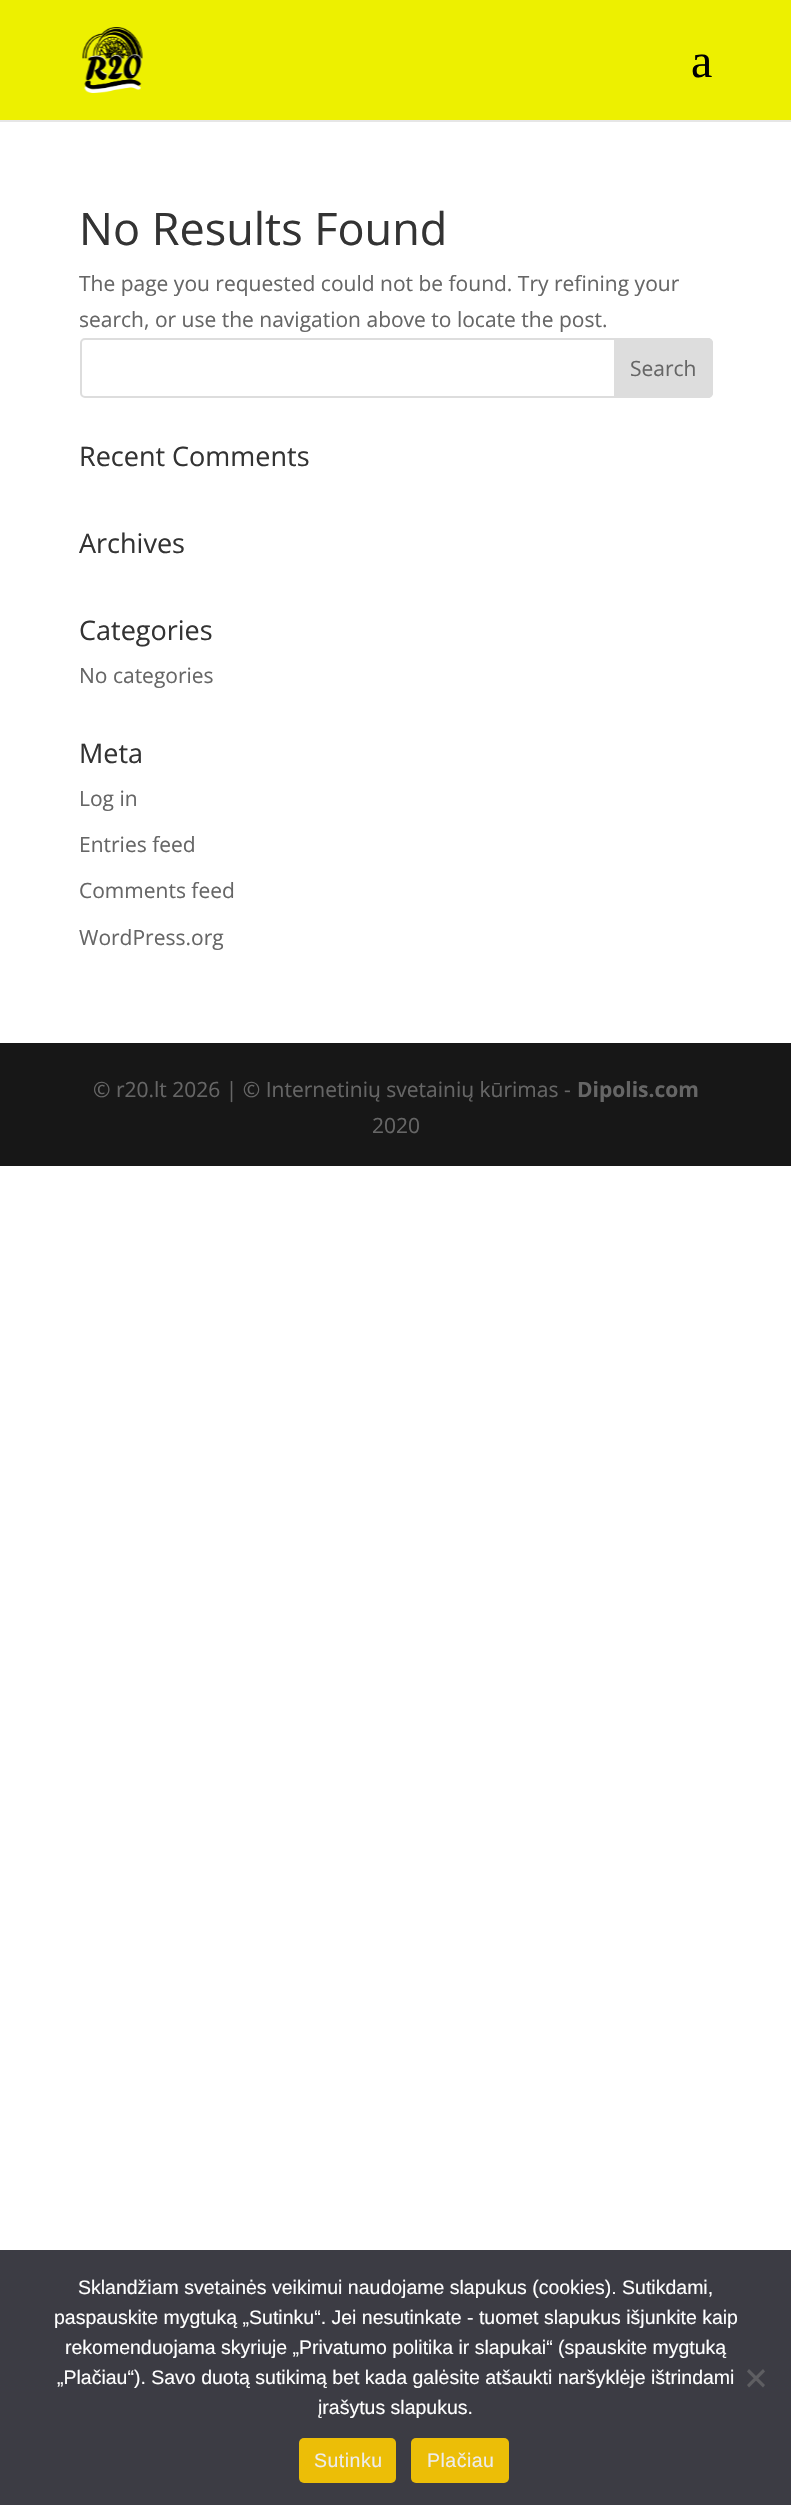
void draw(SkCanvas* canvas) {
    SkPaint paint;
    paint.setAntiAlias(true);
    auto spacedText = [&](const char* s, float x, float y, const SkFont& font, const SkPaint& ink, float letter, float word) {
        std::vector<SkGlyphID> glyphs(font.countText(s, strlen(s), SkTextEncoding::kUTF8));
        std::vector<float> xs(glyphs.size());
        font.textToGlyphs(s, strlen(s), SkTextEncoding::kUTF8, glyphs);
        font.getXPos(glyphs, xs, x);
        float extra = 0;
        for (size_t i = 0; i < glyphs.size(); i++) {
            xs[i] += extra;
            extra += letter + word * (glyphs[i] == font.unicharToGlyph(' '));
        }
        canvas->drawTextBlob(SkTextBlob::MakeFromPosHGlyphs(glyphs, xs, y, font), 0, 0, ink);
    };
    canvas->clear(0xFFFFFFFF);
    paint.setColor(0xFFE6E6E6);
    canvas->drawRect(SkRect::MakeXYWH(0, 120, 791, 2), paint);
    paint.setColor(0xFFEDF000);
    canvas->drawRect(SkRect::MakeXYWH(0, 0, 791, 120), paint);
    canvas->drawImageRect(SkImages::DeferredFromEncodedData(SkData::MakeFromFileName("img1.png")), SkRect::MakeXYWH(82, 27, 61, 66), SkSamplingOptions());
    SkFont font1(fontMgr->matchFamilyStyle("Liberation Serif", SkFontStyle::Normal()), 48);
    font1.setSubpixel(true);
    paint.setColor(0xFF000000);
    canvas->drawString("a", 691, 77, font1, paint);
    SkFont font2(fontMgr->matchFamilyStyle("Open Sans", SkFontStyle::Normal()), 45);
    font2.setSubpixel(true);
    paint.setColor(0xFF333333);
    canvas->drawString("No Results Found", 79, 245, font2, paint);
    SkFont font3(fontMgr->matchFamilyStyle("Open Sans", SkFontStyle::Normal()), 21);
    font3.setSubpixel(true);
    paint.setColor(0xFF666666);
    canvas->drawString("The page you requested could not be found. Try refining your", 79, 291, font3, paint);
    canvas->drawString("search, or use the navigation above to locate the post.", 79, 327, font3, paint);
    paint.setStyle(SkPaint::kStroke_Style);
    paint.setStrokeWidth(2);
    paint.setColor(0xFFDDDDDD);
    canvas->drawRoundRect(SkRect::MakeXYWH(81, 339, 631, 58), 4, 4, paint);
    paint.setStyle(SkPaint::kFill_Style);
    canvas->drawPath(SkPathBuilder().moveTo(615, 339).lineTo(708, 339).cubicTo(710, 339, 712, 341, 712, 343).lineTo(712, 393).cubicTo(712, 395, 710, 397, 708, 397).lineTo(615, 397).close().detach(), paint);
    paint.setStyle(SkPaint::kStroke_Style);
    canvas->drawPath(SkPathBuilder().moveTo(615, 339).lineTo(708, 339).cubicTo(710, 339, 712, 341, 712, 343).lineTo(712, 393).cubicTo(712, 395, 710, 397, 708, 397).lineTo(615, 397).close().detach(), paint);
    paint.setStyle(SkPaint::kFill_Style);
    paint.setColor(0xFF666666);
    canvas->drawString("Search", 630, 376, font3, paint);
    SkFont font4(fontMgr->matchFamilyStyle("Open Sans", SkFontStyle::Normal()), 27);
    font4.setSubpixel(true);
    paint.setColor(0xFF333333);
    canvas->drawString("Recent Comments", 79, 466, font4, paint);
    canvas->drawString("Archives", 79, 553, font4, paint);
    canvas->drawString("Categories", 79, 640, font4, paint);
    paint.setColor(0xFF666666);
    canvas->drawString("No categories", 79, 683, font3, paint);
    paint.setColor(0xFF333333);
    canvas->drawString("Meta", 79, 763, font4, paint);
    paint.setColor(0xFF666666);
    canvas->drawString("Log in", 79, 806, font3, paint);
    canvas->drawString("Entries feed", 79, 852, font3, paint);
    canvas->drawString("Comments feed", 79, 898, font3, paint);
    canvas->drawString("WordPress.org", 79, 945, font3, paint);
    paint.setColor(0xFF171717);
    canvas->drawRect(SkRect::MakeXYWH(0, 1043, 791, 123), paint);
    paint.setColor(0xFF666666);
    canvas->drawString("© r20.lt 2026 | © Internetinių svetainių kūrimas -", 93, 1097, font3, paint);
    SkFont font5(fontMgr->matchFamilyStyle("Open Sans", SkFontStyle::Bold()), 21);
    font5.setSubpixel(true);
    canvas->drawString("Dipolis.com", 577, 1097, font5, paint);
    canvas->drawString("2020", 372, 1133, font3, paint);
    paint.setColor(0xFF3C3C44);
    canvas->drawRect(SkRect::MakeXYWH(0, 2250, 791, 255), paint);
    SkFont font6(fontMgr->matchFamilyStyle("Liberation Sans", SkFontStyle::Normal()), 19.5f);
    font6.setSubpixel(true);
    paint.setColor(0xFFFFFFFF);
    canvas->drawString("Sklandžiam svetainės veikimui naudojame slapukus (cookies). Sutikdami,", 78, 2294, font6, paint);
    canvas->drawString("paspauskite mygtuką „Sutinku“. Jei nesutinkate - tuomet slapukus išjunkite kaip", 54, 2324, font6, paint);
    canvas->drawString("rekomenduojama skyriuje „Privatumo politika ir slapukai“ (spauskite mygtuką", 65, 2354, font6, paint);
    canvas->drawString("„Plačiau“). Savo duotą sutikimą bet kada galėsite atšaukti naršyklėje ištrindami", 57, 2384, font6, paint);
    canvas->drawString("įrašytus slapukus.", 318, 2414, font6, paint);
    paint.setColor(0xFF5E5E62);
    canvas->drawPath(SkPathBuilder().moveTo(763, 2369).lineTo(765, 2371.5f).lineTo(749, 2387.5f).lineTo(747, 2385).close().detach(), paint);
    canvas->drawPath(SkPathBuilder().moveTo(747, 2371.5f).lineTo(749, 2369).lineTo(765, 2385).lineTo(763, 2387.5f).close().detach(), paint);
    paint.setColor(0xFFECBE07);
    canvas->drawRoundRect(SkRect::MakeXYWH(299, 2438, 97, 45), 5, 5, paint);
    paint.setColor(0xFFECECEC);
    spacedText("Sutinku", 314, 2467, font6, paint, 0.5f, 0);
    paint.setColor(0xFFECBE07);
    canvas->drawRoundRect(SkRect::MakeXYWH(411, 2438, 98, 45), 5, 5, paint);
    paint.setColor(0xFFECECEC);
    spacedText("Plačiau", 427, 2467, font6, paint, 0.5f, 0);
}
